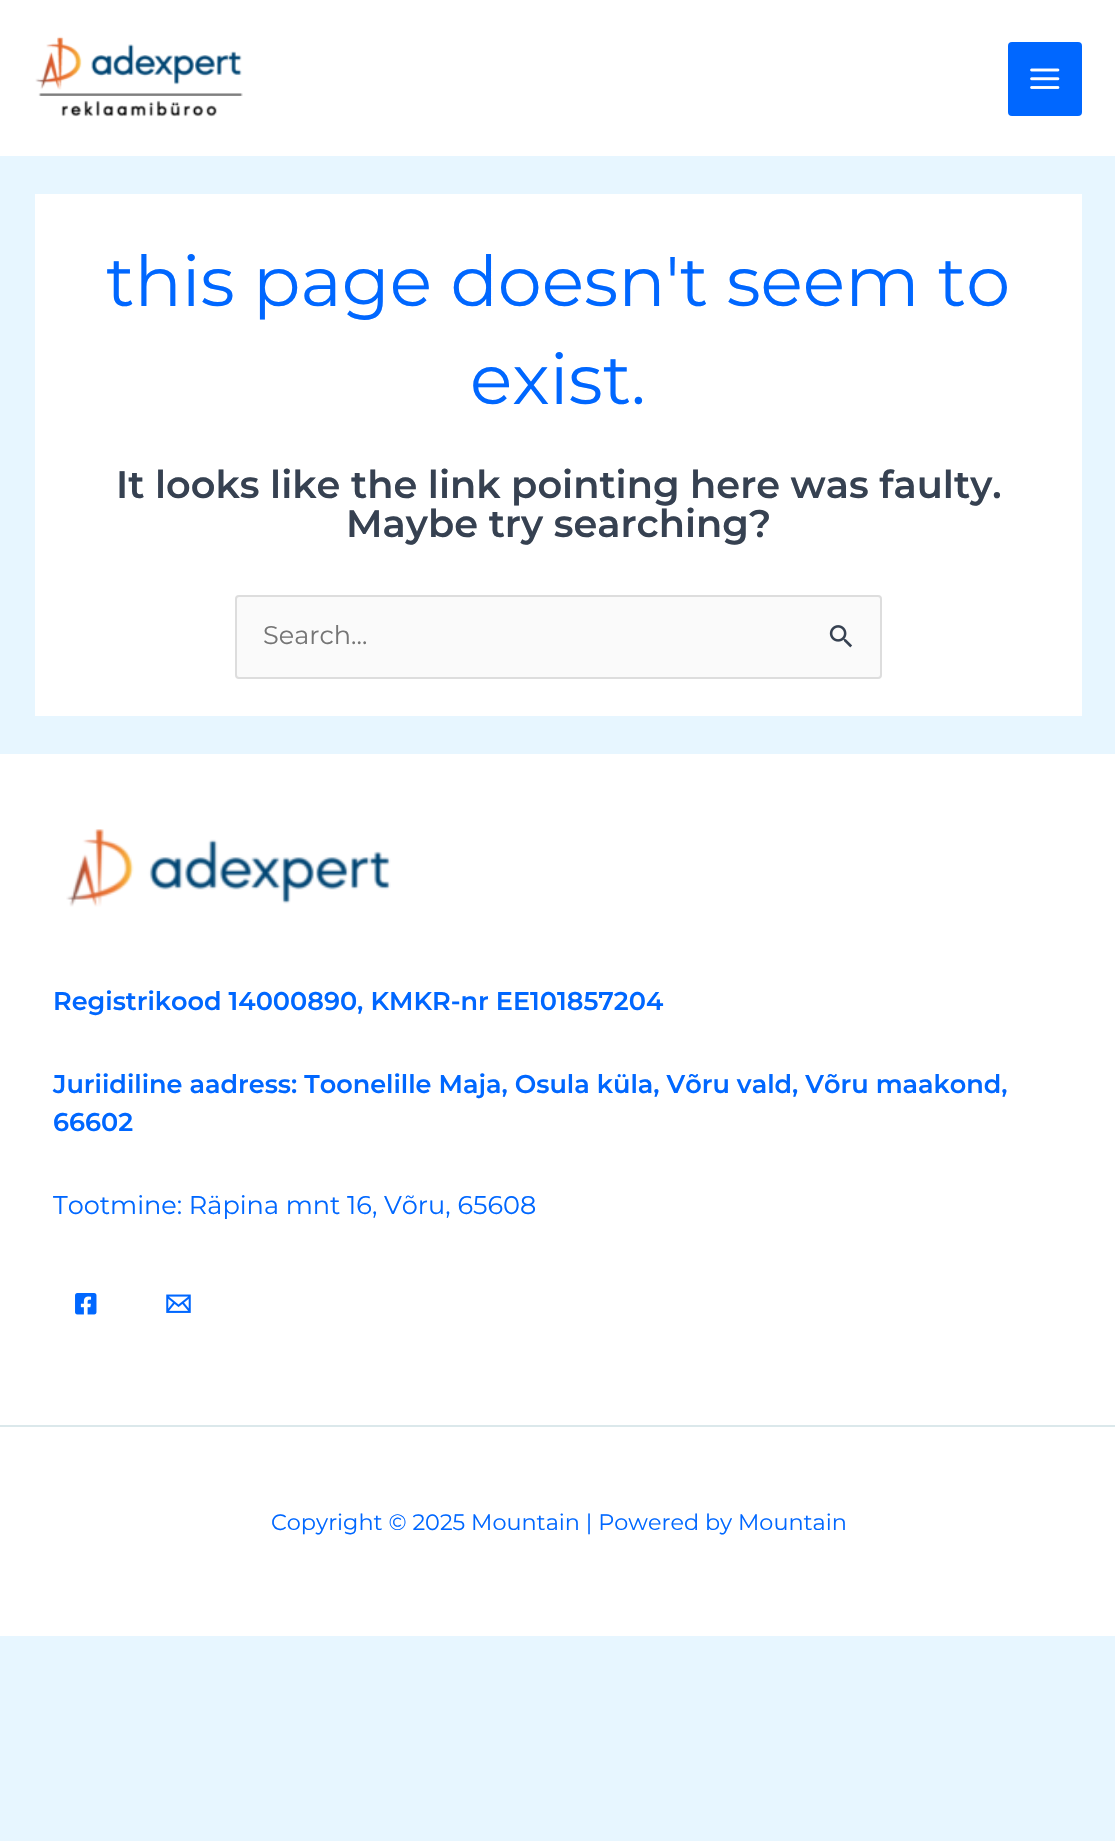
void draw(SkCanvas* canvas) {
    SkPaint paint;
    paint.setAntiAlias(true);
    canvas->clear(0xFFE7F6FF);
    paint.setColor(0xFFFFFFFF);
    canvas->drawRect(SkRect::MakeXYWH(0, 0, 1115, 156), paint);
    canvas->drawImageRect(SkImages::DeferredFromEncodedData(SkData::MakeFromFileName("img1.png")), SkRect::MakeXYWH(35, 36, 208, 81), SkSamplingOptions());
    paint.setColor(0xFF0067FF);
    canvas->drawRoundRect(SkRect::MakeXYWH(1008, 42, 74, 74), 4, 4, paint);
    canvas->drawImageRect(SkImages::DeferredFromEncodedData(SkData::MakeFromFileName("img2.png")), SkRect::MakeXYWH(1030, 68, 30, 21), SkSamplingOptions());
    paint.setColor(0xFFFFFFFF);
    canvas->drawRect(SkRect::MakeXYWH(35, 194, 1047, 522), paint);
    SkFont font1(fontMgr->matchFamilyStyle("Montserrat", SkFontStyle::Normal()), 70);
    font1.setSubpixel(true);
    paint.setColor(0xFF0067FF);
    canvas->drawString("this page doesn't seem to", 106, 306, font1, paint);
    canvas->drawString("exist.", 470, 404, font1, paint);
    SkFont font2(fontMgr->matchFamilyStyle("Montserrat", SkFontStyle(600, SkFontStyle::kNormal_Width, SkFontStyle::kUpright_Slant)), 38.3f);
    font2.setSubpixel(true);
    paint.setColor(0xFF364151);
    canvas->drawString("It looks like the link pointing here was faulty.", 116, 498, font2, paint);
    canvas->drawString("Maybe try searching?", 346, 537, font2, paint);
    paint.setColor(0xFFFAFAFA);
    canvas->drawRoundRect(SkRect::MakeXYWH(236, 596, 645, 82), 3, 3, paint);
    paint.setStyle(SkPaint::kStroke_Style);
    paint.setStrokeWidth(2);
    paint.setColor(0xFFDDDDDD);
    canvas->drawRoundRect(SkRect::MakeXYWH(236, 596, 645, 82), 3, 3, paint);
    SkFont font3(fontMgr->matchFamilyStyle("Montserrat", SkFontStyle::Normal()), 25.55f);
    font3.setSubpixel(true);
    paint.setStyle(SkPaint::kFill_Style);
    paint.setColor(0xFF757575);
    canvas->drawString("Search...", 263, 644, font3, paint);
    canvas->drawImageRect(SkImages::DeferredFromEncodedData(SkData::MakeFromFileName("img3.png")), SkRect::MakeXYWH(829, 625, 24, 23), SkSamplingOptions());
    paint.setColor(0xFFFFFFFF);
    canvas->drawRect(SkRect::MakeXYWH(0, 754, 1115, 882), paint);
    canvas->drawImageRect(SkImages::DeferredFromEncodedData(SkData::MakeFromFileName("img4.png")), SkRect::MakeXYWH(66, 829, 325, 78), SkSamplingOptions());
    SkFont font4(fontMgr->matchFamilyStyle("Montserrat", SkFontStyle(600, SkFontStyle::kNormal_Width, SkFontStyle::kUpright_Slant)), 25.55f);
    font4.setSubpixel(true);
    paint.setColor(0xFF0067FF);
    canvas->drawString("Registrikood 14000890, KMKR-nr EE101857204", 53, 1010, font4, paint);
    canvas->drawString("Juriidiline aadress: Toonelille Maja, Osula küla, Võru vald, Võru maakond,", 53, 1093, font4, paint);
    canvas->drawString("66602", 53, 1131, font4, paint);
    canvas->drawString("Tootmine: Räpina mnt 16, Võru, 65608", 53, 1214, font3, paint);
    canvas->drawImageRect(SkImages::DeferredFromEncodedData(SkData::MakeFromFileName("img5.png")), SkRect::MakeXYWH(75, 1293, 22, 22), SkSamplingOptions());
    canvas->drawImageRect(SkImages::DeferredFromEncodedData(SkData::MakeFromFileName("img6.png")), SkRect::MakeXYWH(166, 1294, 25, 19), SkSamplingOptions());
    paint.setColor(0xFFDBE8EB);
    canvas->drawRect(SkRect::MakeXYWH(0, 1425, 1115, 2), paint);
    SkFont font5(fontMgr->matchFamilyStyle("Montserrat", SkFontStyle::Normal()), 22.35f);
    font5.setSubpixel(true);
    paint.setColor(0xFF0067FF);
    canvas->drawString("Copyright © 2025 Mountain | Powered by Mountain", 271, 1530, font5, paint);
}
